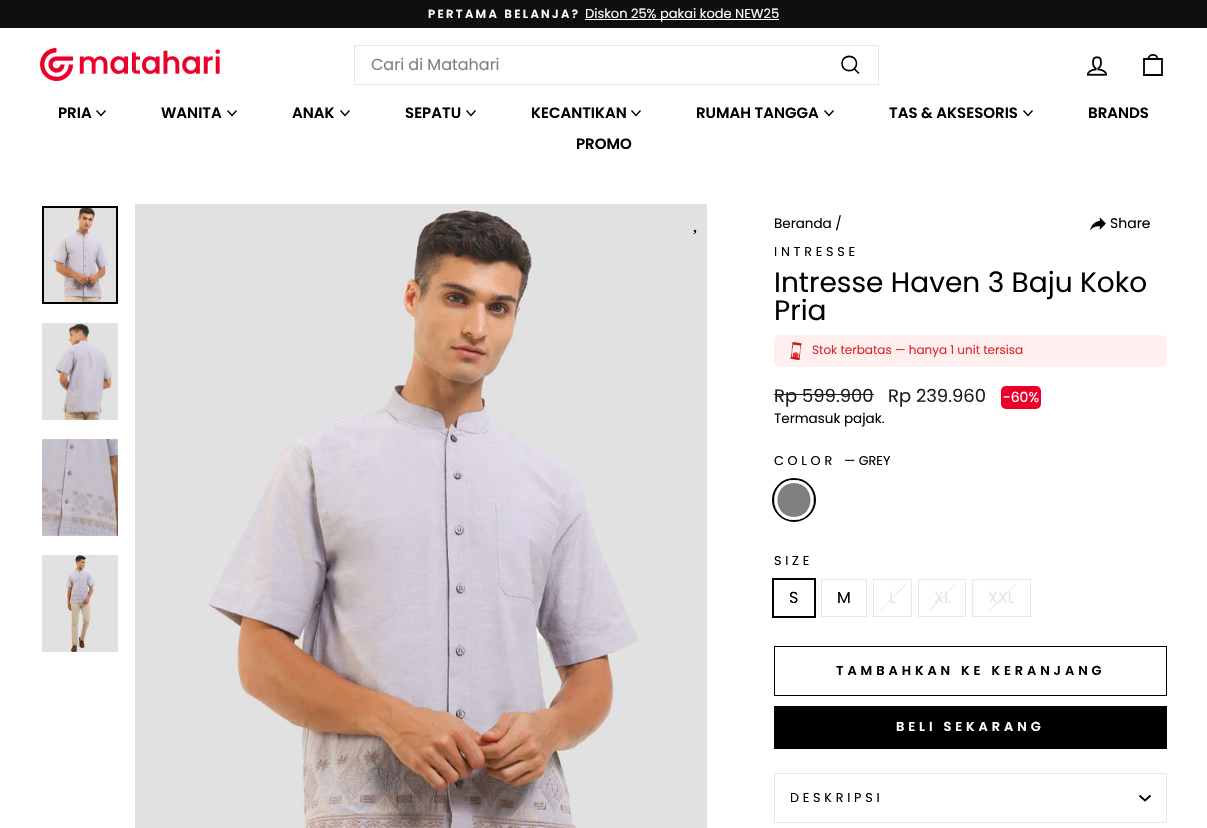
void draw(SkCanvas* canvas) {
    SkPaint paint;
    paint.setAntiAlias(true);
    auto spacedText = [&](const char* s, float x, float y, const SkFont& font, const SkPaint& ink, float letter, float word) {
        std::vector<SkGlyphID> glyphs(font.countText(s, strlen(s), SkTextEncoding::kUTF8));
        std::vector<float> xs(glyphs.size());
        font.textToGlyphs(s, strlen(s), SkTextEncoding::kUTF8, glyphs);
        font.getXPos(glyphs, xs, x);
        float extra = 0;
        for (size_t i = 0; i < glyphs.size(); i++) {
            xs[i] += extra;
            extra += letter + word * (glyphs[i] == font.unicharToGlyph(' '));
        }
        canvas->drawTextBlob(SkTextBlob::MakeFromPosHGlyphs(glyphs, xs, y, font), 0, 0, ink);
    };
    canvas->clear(0xFFFFFFFF);
    paint.setColor(0xFF0F0F0F);
    canvas->drawRect(SkRect::MakeXYWH(0, 0, 1207, 28), paint);
    SkFont font1(fontMgr->matchFamilyStyle("Poppins", SkFontStyle(600, SkFontStyle::kNormal_Width, SkFontStyle::kUpright_Slant)), 11.75f);
    font1.setSubpixel(true);
    paint.setColor(0xFFFFFFFF);
    spacedText("PERTAMA BELANJA?", 428, 18, font1, paint, 2.3f, 0);
    canvas->drawRect(SkRect::MakeXYWH(585, 19, 194, 1), paint);
    SkFont font2(fontMgr->matchFamilyStyle("Poppins", SkFontStyle::Normal()), 13);
    font2.setSubpixel(true);
    canvas->drawString("Diskon 25% pakai kode NEW25", 585, 18, font2, paint);
    canvas->drawImageRect(SkImages::DeferredFromEncodedData(SkData::MakeFromFileName("img1.png")), SkRect::MakeXYWH(40, 47, 180, 34), SkSamplingOptions());
    paint.setStyle(SkPaint::kStroke_Style);
    paint.setStrokeWidth(1);
    paint.setColor(0xFFE8E8E1);
    canvas->drawRect(SkRect::MakeXYWH(354.5f, 45.5f, 524, 39), paint);
    SkFont font3(fontMgr->matchFamilyStyle("Poppins", SkFontStyle::Normal()), 16);
    font3.setSubpixel(true);
    paint.setStyle(SkPaint::kFill_Style);
    paint.setColor(0xFF808080);
    canvas->drawString("Cari di Matahari", 371, 70, font3, paint);
    paint.setStyle(SkPaint::kStroke_Style);
    paint.setStrokeWidth(1.6f);
    paint.setColor(0xFF000000);
    canvas->drawPath(SkPathBuilder().moveTo(856.5f, 63.5f).cubicTo(856.5f, 73, 842, 73, 842, 63.5f).cubicTo(842, 54, 856.5f, 54, 856.5f, 63.5f).close().moveTo(859, 73.5f).lineTo(854.5f, 69).detach(), paint);
    canvas->drawImageRect(SkImages::DeferredFromEncodedData(SkData::MakeFromFileName("img2.png")), SkRect::MakeXYWH(1086, 56, 22, 20), SkSamplingOptions());
    paint.setStrokeWidth(1.8f);
    canvas->drawPath(SkPathBuilder().moveTo(1144, 59).lineTo(1162, 59).lineTo(1162, 75).lineTo(1144, 75).close().moveTo(1148.5f, 59).cubicTo(1148.5f, 53.5f, 1157.5f, 53.5f, 1157.5f, 59).detach(), paint);
    SkFont font4(fontMgr->matchFamilyStyle("Poppins", SkFontStyle(600, SkFontStyle::kNormal_Width, SkFontStyle::kUpright_Slant)), 15);
    font4.setSubpixel(true);
    paint.setStyle(SkPaint::kFill_Style);
    canvas->drawString("PRIA", 58, 118, font4, paint);
    paint.setStyle(SkPaint::kStroke_Style);
    paint.setStrokeWidth(1.4f);
    canvas->drawPath(SkPathBuilder().moveTo(96.5f, 110.5f).lineTo(101, 115.5f).lineTo(105.5f, 110.5f).detach(), paint);
    paint.setStyle(SkPaint::kFill_Style);
    canvas->drawString("WANITA", 161, 118, font4, paint);
    paint.setStyle(SkPaint::kStroke_Style);
    canvas->drawPath(SkPathBuilder().moveTo(227.5f, 110.5f).lineTo(232, 115.5f).lineTo(236.5f, 110.5f).detach(), paint);
    paint.setStyle(SkPaint::kFill_Style);
    canvas->drawString("ANAK", 292, 118, font4, paint);
    paint.setStyle(SkPaint::kStroke_Style);
    canvas->drawPath(SkPathBuilder().moveTo(340.5f, 110.5f).lineTo(345, 115.5f).lineTo(349.5f, 110.5f).detach(), paint);
    paint.setStyle(SkPaint::kFill_Style);
    canvas->drawString("SEPATU", 405, 118, font4, paint);
    paint.setStyle(SkPaint::kStroke_Style);
    canvas->drawPath(SkPathBuilder().moveTo(466.5f, 110.5f).lineTo(471, 115.5f).lineTo(475.5f, 110.5f).detach(), paint);
    paint.setStyle(SkPaint::kFill_Style);
    canvas->drawString("KECANTIKAN", 531, 118, font4, paint);
    paint.setStyle(SkPaint::kStroke_Style);
    canvas->drawPath(SkPathBuilder().moveTo(631.5f, 110.5f).lineTo(636, 115.5f).lineTo(640.5f, 110.5f).detach(), paint);
    paint.setStyle(SkPaint::kFill_Style);
    canvas->drawString("RUMAH TANGGA", 696, 118, font4, paint);
    paint.setStyle(SkPaint::kStroke_Style);
    canvas->drawPath(SkPathBuilder().moveTo(824.5f, 110.5f).lineTo(829, 115.5f).lineTo(833.5f, 110.5f).detach(), paint);
    paint.setStyle(SkPaint::kFill_Style);
    canvas->drawString("TAS & AKSESORIS", 889, 118, font4, paint);
    paint.setStyle(SkPaint::kStroke_Style);
    canvas->drawPath(SkPathBuilder().moveTo(1023.5f, 110.5f).lineTo(1028, 115.5f).lineTo(1032.5f, 110.5f).detach(), paint);
    paint.setStyle(SkPaint::kFill_Style);
    canvas->drawString("BRANDS", 1088, 118, font4, paint);
    canvas->drawString("PROMO", 576, 149, font4, paint);
    canvas->drawImageRect(SkImages::DeferredFromEncodedData(SkData::MakeFromFileName("img3.png")), SkRect::MakeXYWH(44, 208, 72, 94), SkSamplingOptions());
    paint.setStyle(SkPaint::kStroke_Style);
    paint.setStrokeWidth(2);
    canvas->drawRect(SkRect::MakeXYWH(43, 207, 74, 96), paint);
    canvas->drawImageRect(SkImages::DeferredFromEncodedData(SkData::MakeFromFileName("img4.png")), SkRect::MakeXYWH(42, 323, 76, 97), SkSamplingOptions());
    canvas->drawImageRect(SkImages::DeferredFromEncodedData(SkData::MakeFromFileName("img5.png")), SkRect::MakeXYWH(42, 439, 76, 97), SkSamplingOptions());
    canvas->drawImageRect(SkImages::DeferredFromEncodedData(SkData::MakeFromFileName("img6.png")), SkRect::MakeXYWH(42, 555, 76, 97), SkSamplingOptions());
    canvas->drawImageRect(SkImages::DeferredFromEncodedData(SkData::MakeFromFileName("img7.png")), SkRect::MakeXYWH(135, 204, 572, 624), SkSamplingOptions());
    canvas->drawImageRect(SkImages::DeferredFromEncodedData(SkData::MakeFromFileName("img8.png")), SkRect::MakeXYWH(693, 229, 4, 5), SkSamplingOptions());
    SkFont font5(fontMgr->matchFamilyStyle("Poppins", SkFontStyle::Normal()), 13.5f);
    font5.setSubpixel(true);
    paint.setStyle(SkPaint::kFill_Style);
    canvas->drawString("Beranda /", 774, 228, font5, paint);
    canvas->drawImageRect(SkImages::DeferredFromEncodedData(SkData::MakeFromFileName("img9.png")), SkRect::MakeXYWH(1090, 217, 16, 14), SkSamplingOptions());
    SkFont font6(fontMgr->matchFamilyStyle("Poppins", SkFontStyle::Normal()), 14);
    font6.setSubpixel(true);
    canvas->drawString("Share", 1110, 228, font6, paint);
    SkFont font7(fontMgr->matchFamilyStyle("Poppins", SkFontStyle::Normal()), 12.75f);
    font7.setSubpixel(true);
    spacedText("INTRESSE", 774, 256, font7, paint, 3.75f, 0);
    SkFont font8(fontMgr->matchFamilyStyle("Poppins", SkFontStyle::Normal()), 28);
    font8.setSubpixel(true);
    canvas->drawString("Intresse Haven 3 Baju Koko", 774, 292, font8, paint);
    canvas->drawString("Pria", 774, 320, font8, paint);
    paint.setColor(0xFFFFEFEF);
    canvas->drawRoundRect(SkRect::MakeXYWH(774, 335, 393, 32), 6, 6, paint);
    canvas->drawImageRect(SkImages::DeferredFromEncodedData(SkData::MakeFromFileName("img10.png")), SkRect::MakeXYWH(790, 342, 12, 18), SkSamplingOptions());
    SkFont font9(fontMgr->matchFamilyStyle("Poppins", SkFontStyle::Normal()), 12);
    font9.setSubpixel(true);
    paint.setColor(0xFFDC2627);
    canvas->drawString("Stok terbatas — hanya 1 unit tersisa", 812, 354, font9, paint);
    SkFont font10(fontMgr->matchFamilyStyle("Poppins", SkFontStyle::Normal()), 18);
    font10.setSubpixel(true);
    paint.setColor(0xFF1C1D1D);
    canvas->drawString("Rp 599.900", 774, 402, font10, paint);
    canvas->drawRect(SkRect::MakeXYWH(774, 394, 100, 1), paint);
    canvas->drawString("Rp 239.960", 888, 402, font10, paint);
    paint.setColor(0xFFEC0029);
    canvas->drawRoundRect(SkRect::MakeXYWH(1001, 386, 40, 23), 5, 5, paint);
    paint.setColor(0xFFFFFFFF);
    canvas->drawString("-60%", 1003, 402, font6, paint);
    paint.setColor(0xFF000000);
    canvas->drawString("Termasuk pajak.", 774, 423, font5, paint);
    spacedText("COLOR", 774, 465, font7, paint, 3.75f, 0);
    canvas->drawString("— GREY", 844, 465, font7, paint);
    paint.setStyle(SkPaint::kStroke_Style);
    canvas->drawCircle(794, 500, 21, paint);
    paint.setStyle(SkPaint::kFill_Style);
    paint.setColor(0xFF808080);
    canvas->drawCircle(794, 500, 20, paint);
    paint.setColor(0xFFFFFFFF);
    canvas->drawPath(SkPathBuilder(SkPathFillType::kEvenOdd).moveTo(794, 480).cubicTo(768, 480, 768, 520, 794, 520).cubicTo(820, 520, 820, 480, 794, 480).close().moveTo(794, 483).cubicTo(772, 483, 772, 517, 794, 517).cubicTo(816, 517, 816, 483, 794, 483).close().detach(), paint);
    paint.setColor(0xFF000000);
    spacedText("SIZE", 774, 565, font7, paint, 3.75f, 0);
    paint.setStyle(SkPaint::kStroke_Style);
    canvas->drawRect(SkRect::MakeXYWH(773, 579, 42, 38), paint);
    paint.setStyle(SkPaint::kFill_Style);
    canvas->drawString("S", 789, 603, font3, paint);
    paint.setStyle(SkPaint::kStroke_Style);
    paint.setStrokeWidth(1);
    paint.setColor(0xFFE8E8E1);
    canvas->drawRect(SkRect::MakeXYWH(821.5f, 579.5f, 45, 37), paint);
    paint.setStyle(SkPaint::kFill_Style);
    paint.setColor(0xFF000000);
    canvas->drawString("M", 837, 603, font3, paint);
    paint.setStyle(SkPaint::kStroke_Style);
    paint.setColor(0xFFE8E8E1);
    canvas->drawRect(SkRect::MakeXYWH(873.5f, 579.5f, 38, 37), paint);
    paint.setStyle(SkPaint::kFill_Style);
    canvas->drawPath(SkPathBuilder().moveTo(905, 584.5f).lineTo(906, 585).lineTo(880, 611).lineTo(879.5f, 610.5f).close().detach(), paint);
    canvas->drawString("L", 889, 603, font3, paint);
    paint.setStyle(SkPaint::kStroke_Style);
    canvas->drawRect(SkRect::MakeXYWH(918.5f, 579.5f, 47, 37), paint);
    paint.setStyle(SkPaint::kFill_Style);
    canvas->drawPath(SkPathBuilder().moveTo(955, 584.5f).lineTo(955.5f, 585).lineTo(930, 611).lineTo(929, 610.5f).close().detach(), paint);
    canvas->drawString("XL", 934, 603, font3, paint);
    paint.setStyle(SkPaint::kStroke_Style);
    canvas->drawRect(SkRect::MakeXYWH(972.5f, 579.5f, 58, 37), paint);
    paint.setStyle(SkPaint::kFill_Style);
    canvas->drawPath(SkPathBuilder().moveTo(1015, 584.5f).lineTo(1015.5f, 585).lineTo(989.5f, 611).lineTo(989, 610.5f).close().detach(), paint);
    canvas->drawString("XXL", 988, 603, font3, paint);
    paint.setStyle(SkPaint::kStroke_Style);
    paint.setColor(0xFF000000);
    canvas->drawRect(SkRect::MakeXYWH(774.5f, 646.5f, 392, 49), paint);
    SkFont font11(fontMgr->matchFamilyStyle("Poppins", SkFontStyle(600, SkFontStyle::kNormal_Width, SkFontStyle::kUpright_Slant)), 13);
    font11.setSubpixel(true);
    paint.setStyle(SkPaint::kFill_Style);
    spacedText("TAMBAHKAN KE KERANJANG", 836, 675, font11, paint, 3.9f, 0);
    canvas->drawRect(SkRect::MakeXYWH(774, 706, 393, 43), paint);
    paint.setColor(0xFFFFFFFF);
    spacedText("BELI SEKARANG", 896, 731, font11, paint, 3.9f, 0);
    paint.setColor(0xFFE8E8E1);
    canvas->drawRect(SkRect::MakeXYWH(774, 822, 393, 1), paint);
    canvas->drawRect(SkRect::MakeXYWH(774, 773, 393, 1), paint);
    canvas->drawRect(SkRect::MakeXYWH(1166, 773, 1, 49), paint);
    canvas->drawRect(SkRect::MakeXYWH(774, 773, 1, 49), paint);
    paint.setColor(0xFF000000);
    spacedText("DESKRIPSI", 790, 802, font7, paint, 3.75f, 0);
    paint.setStyle(SkPaint::kStroke_Style);
    paint.setStrokeWidth(1.7f);
    canvas->drawPath(SkPathBuilder().moveTo(1139.5f, 795.5f).lineTo(1145, 800.5f).lineTo(1150.5f, 795.5f).detach(), paint);
}
